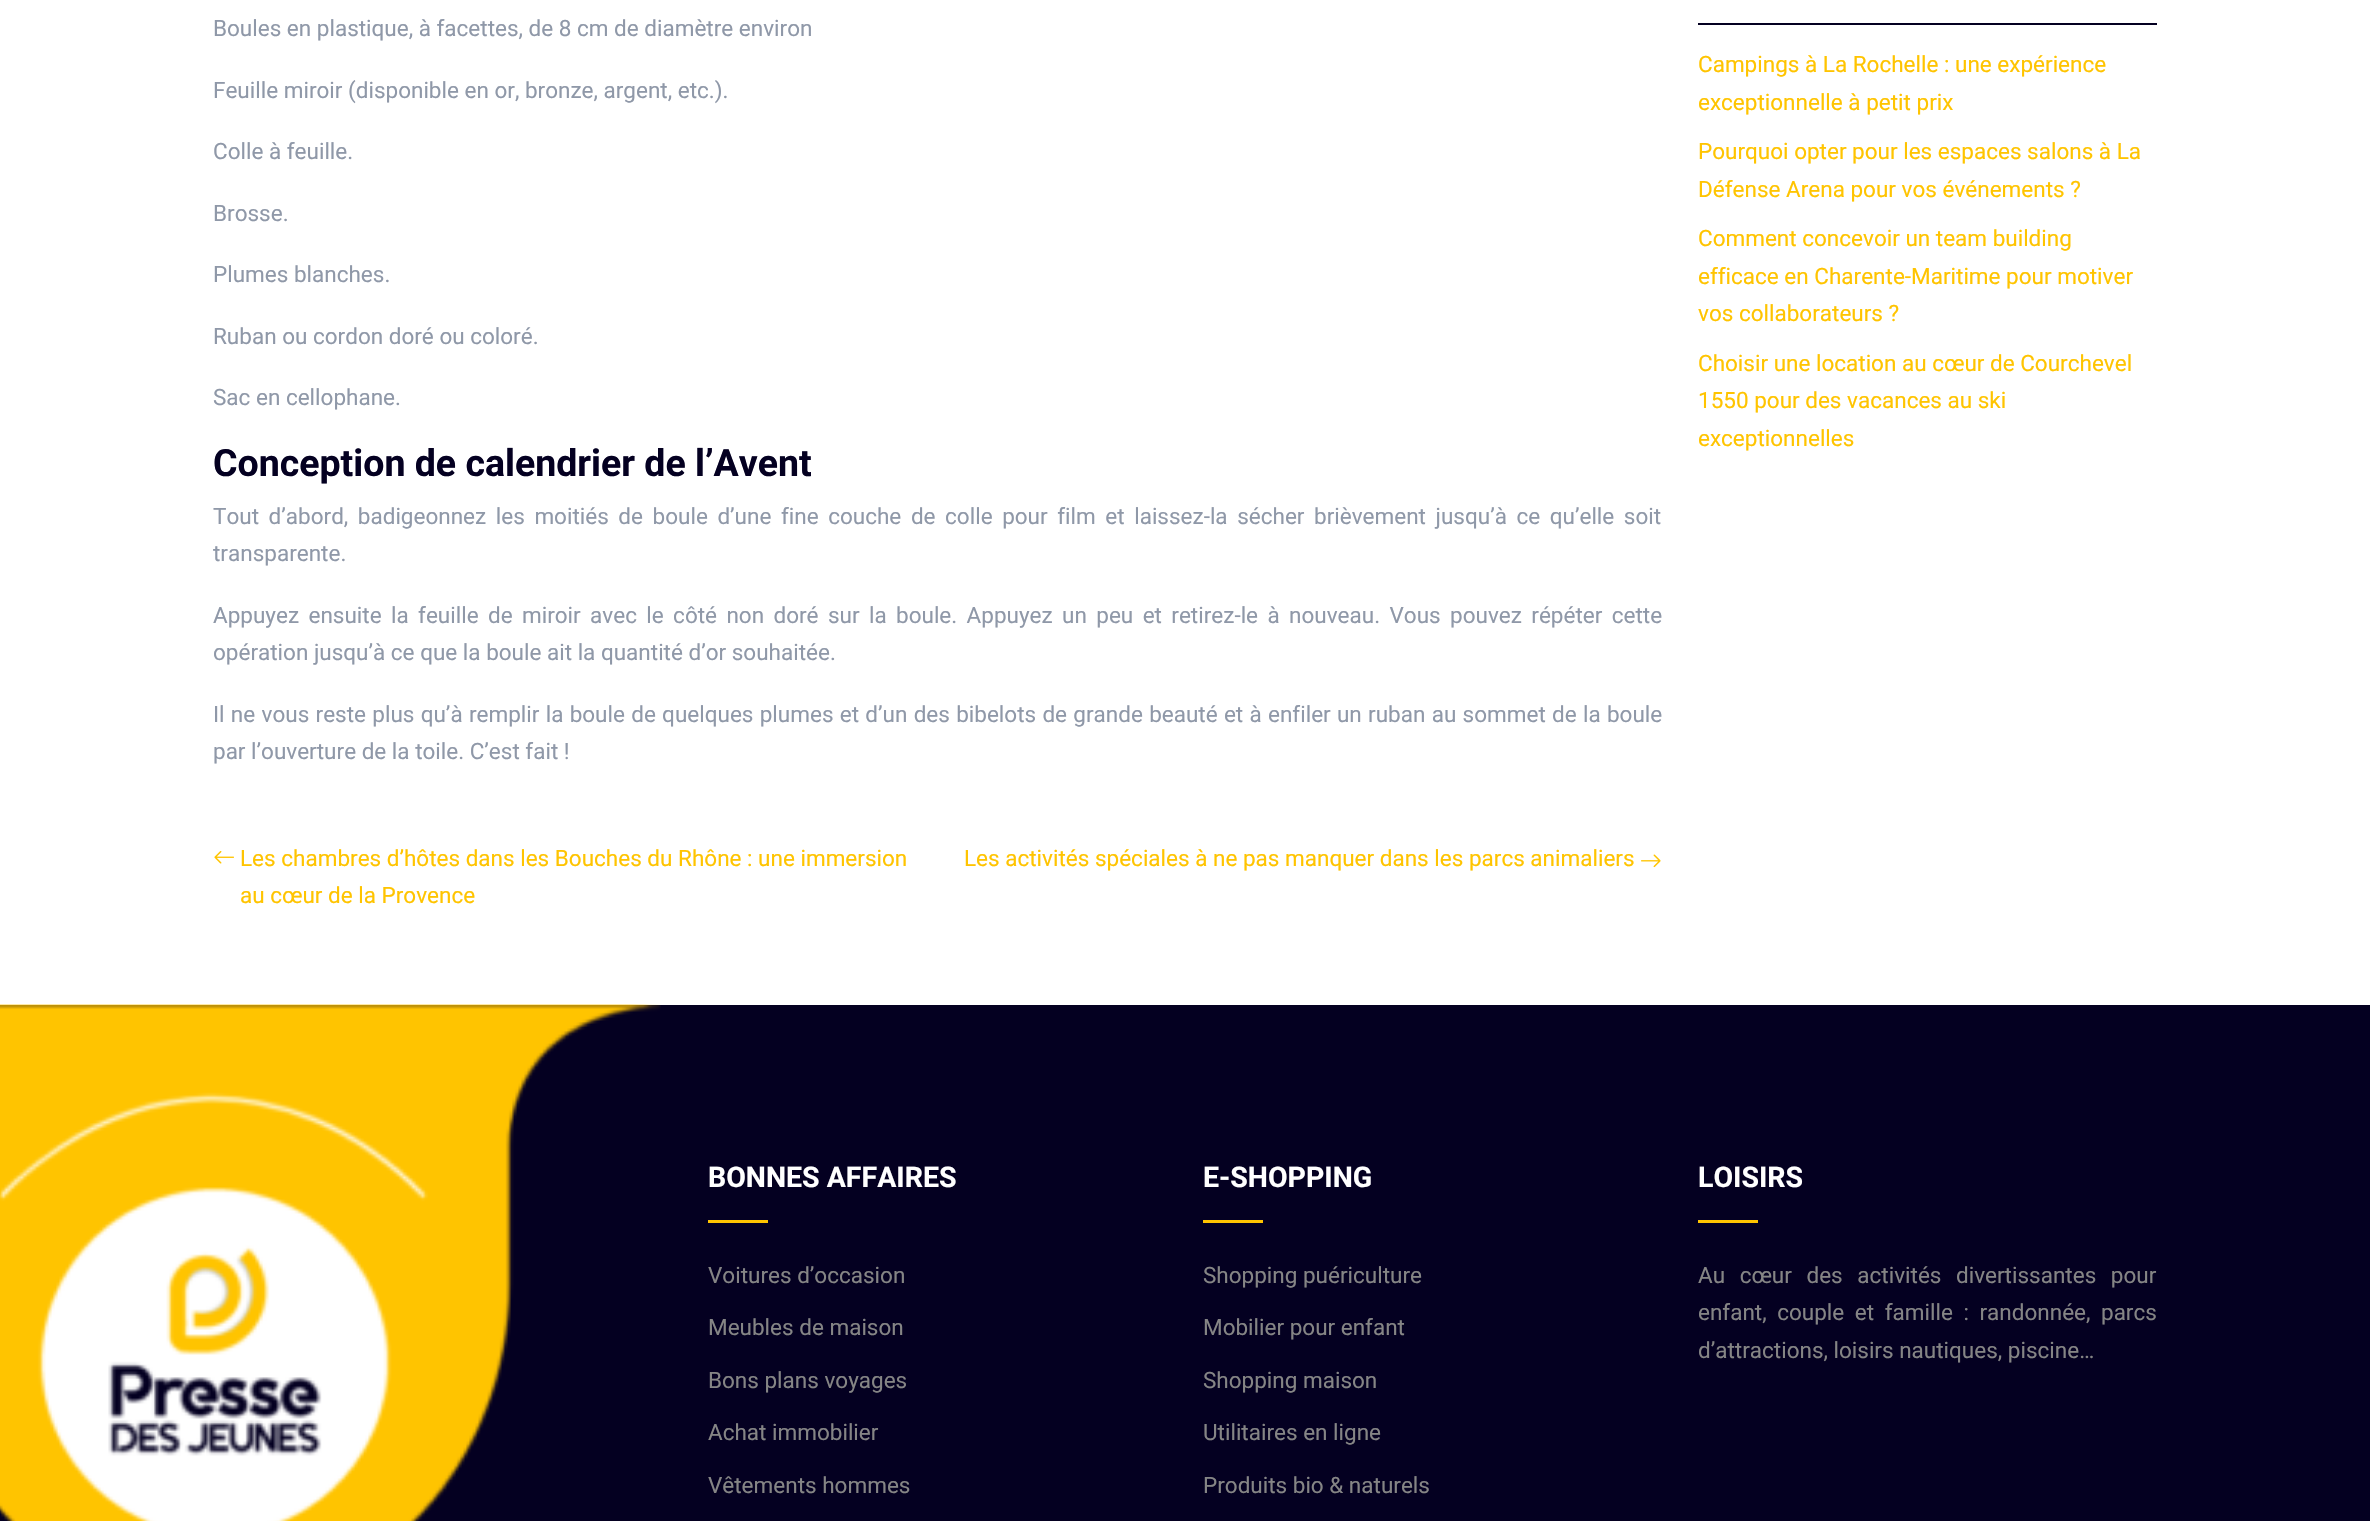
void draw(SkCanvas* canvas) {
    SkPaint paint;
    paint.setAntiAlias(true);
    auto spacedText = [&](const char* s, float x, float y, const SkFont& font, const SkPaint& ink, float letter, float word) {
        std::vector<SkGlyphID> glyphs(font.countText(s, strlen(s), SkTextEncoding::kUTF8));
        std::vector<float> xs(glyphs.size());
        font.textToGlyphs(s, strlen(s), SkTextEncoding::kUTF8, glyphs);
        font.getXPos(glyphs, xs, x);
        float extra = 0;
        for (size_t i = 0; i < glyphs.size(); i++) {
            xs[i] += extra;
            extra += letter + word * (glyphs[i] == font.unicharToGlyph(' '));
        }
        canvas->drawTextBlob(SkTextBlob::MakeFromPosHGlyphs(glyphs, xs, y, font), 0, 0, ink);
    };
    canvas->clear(0xFFFFFFFF);
    SkFont font1(fontMgr->matchFamilyStyle("Roboto", SkFontStyle::Normal()), 22.5f);
    font1.setSubpixel(true);
    paint.setColor(0xFF8F98A8);
    canvas->drawString("Boules en plastique, à facettes, de 8 cm de diamètre environ", 213, 36, font1, paint);
    canvas->drawString("Feuille miroir (disponible en or, bronze, argent, etc.).", 213, 98, font1, paint);
    canvas->drawString("Colle à feuille.", 213, 159, font1, paint);
    canvas->drawString("Brosse.", 213, 221, font1, paint);
    canvas->drawString("Plumes blanches.", 213, 282, font1, paint);
    canvas->drawString("Ruban ou cordon doré ou coloré.", 213, 344, font1, paint);
    canvas->drawString("Sac en cellophane.", 213, 405, font1, paint);
    SkFont font2(fontMgr->matchFamilyStyle("Roboto", SkFontStyle::Bold()), 37.5f);
    font2.setSubpixel(true);
    paint.setColor(0xFF040021);
    canvas->drawString("Conception de calendrier de l’Avent", 213, 476, font2, paint);
    paint.setColor(0xFF8F98A8);
    spacedText("Tout d’abord, badigeonnez les moitiés de boule d’une fine couche de colle pour film et laissez-la sécher brièvement jusqu’à ce qu’elle soit", 213, 524, font1, paint, 0, 4);
    canvas->drawString("transparente.", 213, 561, font1, paint);
    spacedText("Appuyez ensuite la feuille de miroir avec le côté non doré sur la boule. Appuyez un peu et retirez-le à nouveau. Vous pouvez répéter cette", 213, 623, font1, paint, 0, 3.8f);
    canvas->drawString("opération jusqu’à ce que la boule ait la quantité d’or souhaitée.", 213, 660, font1, paint);
    spacedText("Il ne vous reste plus qu’à remplir la boule de quelques plumes et d’un des bibelots de grande beauté et à enfiler un ruban au sommet de la boule", 213, 722, font1, paint, 0, 0.7f);
    canvas->drawString("par l’ouverture de la toile. C’est fait !", 213, 759, font1, paint);
    canvas->drawImageRect(SkImages::DeferredFromEncodedData(SkData::MakeFromFileName("img1.png")), SkRect::MakeXYWH(214, 851, 20, 13), SkSamplingOptions());
    paint.setColor(0xFFFFC400);
    canvas->drawString("Les chambres d’hôtes dans les Bouches du Rhône : une immersion", 240, 866, font1, paint);
    canvas->drawString("au cœur de la Provence", 240, 903, font1, paint);
    canvas->drawString("Les activités spéciales à ne pas manquer dans les parcs animaliers", 964, 866, font1, paint);
    canvas->drawImageRect(SkImages::DeferredFromEncodedData(SkData::MakeFromFileName("img2.png")), SkRect::MakeXYWH(1641, 854, 20, 14), SkSamplingOptions());
    paint.setColor(0xFF040021);
    canvas->drawRect(SkRect::MakeXYWH(1698, 23, 459, 2), paint);
    paint.setColor(0xFFFFC400);
    canvas->drawString("Campings à La Rochelle : une expérience", 1698, 72, font1, paint);
    canvas->drawString("exceptionnelle à petit prix", 1698, 110, font1, paint);
    canvas->drawString("Pourquoi opter pour les espaces salons à La", 1698, 159, font1, paint);
    canvas->drawString("Défense Arena pour vos événements ?", 1698, 197, font1, paint);
    canvas->drawString("Comment concevoir un team building", 1698, 246, font1, paint);
    canvas->drawString("efficace en Charente-Maritime pour motiver", 1698, 284, font1, paint);
    canvas->drawString("vos collaborateurs ?", 1698, 321, font1, paint);
    canvas->drawString("Choisir une location au cœur de Courchevel", 1698, 371, font1, paint);
    canvas->drawString("1550 pour des vacances au ski", 1698, 408, font1, paint);
    canvas->drawString("exceptionnelles", 1698, 446, font1, paint);
    paint.setColor(0xFF040021);
    canvas->drawRect(SkRect::MakeXYWH(0, 1005, 2370, 516), paint);
    canvas->drawImageRect(SkImages::DeferredFromEncodedData(SkData::MakeFromFileName("img3.png")), SkRect::MakeXYWH(0, 1004, 661, 517), SkSamplingOptions());
    SkFont font3(fontMgr->matchFamilyStyle("Roboto", SkFontStyle::Bold()), 28.5f);
    font3.setSubpixel(true);
    paint.setColor(0xFFFFFFFF);
    canvas->drawString("BONNES AFFAIRES", 708, 1187, font3, paint);
    paint.setColor(0xFFFFC400);
    canvas->drawRect(SkRect::MakeXYWH(708, 1220, 60, 3), paint);
    paint.setColor(0xFF858585);
    canvas->drawString("Voitures d’occasion", 708, 1283, font1, paint);
    canvas->drawString("Meubles de maison", 708, 1335, font1, paint);
    canvas->drawString("Bons plans voyages", 708, 1388, font1, paint);
    canvas->drawString("Achat immobilier", 708, 1440, font1, paint);
    canvas->drawString("Vêtements hommes", 708, 1493, font1, paint);
    paint.setColor(0xFFFFFFFF);
    canvas->drawString("E-SHOPPING", 1203, 1187, font3, paint);
    paint.setColor(0xFFFFC400);
    canvas->drawRect(SkRect::MakeXYWH(1203, 1220, 60, 3), paint);
    paint.setColor(0xFF858585);
    canvas->drawString("Shopping puériculture", 1203, 1283, font1, paint);
    canvas->drawString("Mobilier pour enfant", 1203, 1335, font1, paint);
    canvas->drawString("Shopping maison", 1203, 1388, font1, paint);
    canvas->drawString("Utilitaires en ligne", 1203, 1440, font1, paint);
    canvas->drawString("Produits bio & naturels", 1203, 1493, font1, paint);
    paint.setColor(0xFFFFFFFF);
    canvas->drawString("LOISIRS", 1698, 1187, font3, paint);
    paint.setColor(0xFFFFC400);
    canvas->drawRect(SkRect::MakeXYWH(1698, 1220, 60, 3), paint);
    paint.setColor(0xFF858585);
    spacedText("Au cœur des activités divertissantes pour", 1698, 1283, font1, paint, 0, 9);
    spacedText("enfant, couple et famille : randonnée, parcs", 1698, 1320, font1, paint, 0, 5);
    canvas->drawString("d’attractions, loisirs nautiques, piscine…", 1698, 1358, font1, paint);
}
